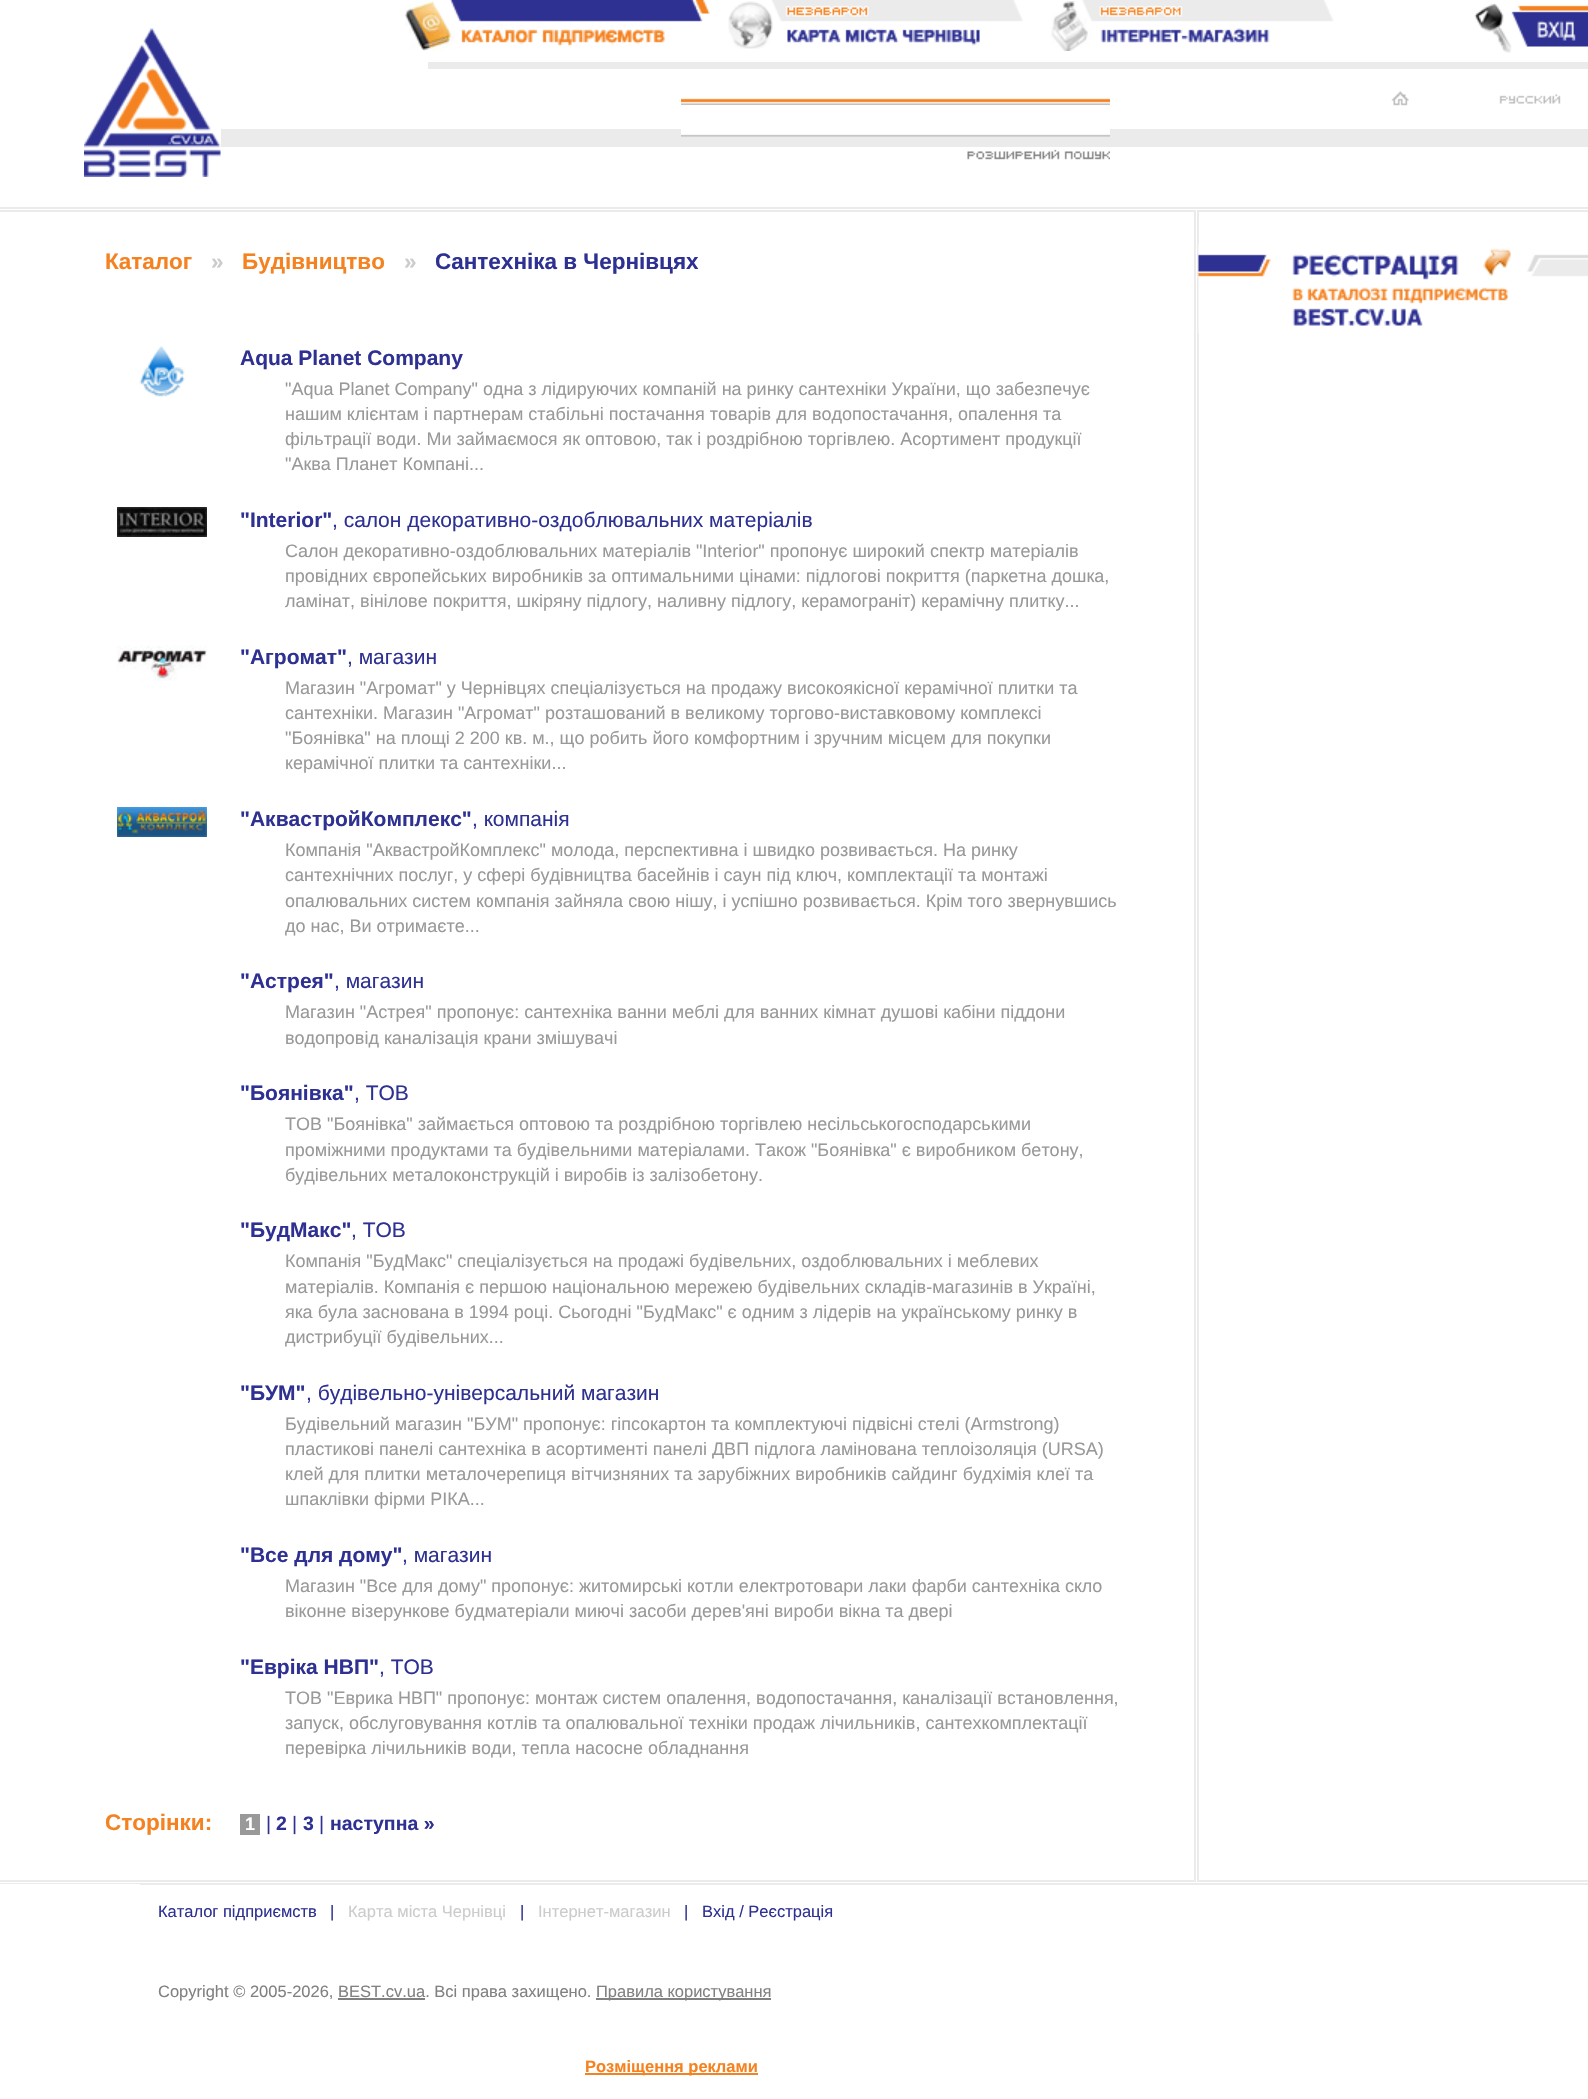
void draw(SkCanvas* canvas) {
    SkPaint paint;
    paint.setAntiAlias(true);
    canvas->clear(0xFFFFFFFF);
    paint.setColor(0xFFEBEBEB);
    canvas->drawRect(SkRect::MakeXYWH(0, 207, 1588, 2), paint);
    canvas->drawImageRect(SkImages::DeferredFromEncodedData(SkData::MakeFromFileName("img1.png")), SkRect::MakeXYWH(405, 0, 305, 51), SkSamplingOptions());
    canvas->drawImageRect(SkImages::DeferredFromEncodedData(SkData::MakeFromFileName("img2.png")), SkRect::MakeXYWH(728, 0, 295, 49), SkSamplingOptions());
    canvas->drawImageRect(SkImages::DeferredFromEncodedData(SkData::MakeFromFileName("img3.png")), SkRect::MakeXYWH(1051, 0, 283, 51), SkSamplingOptions());
    canvas->drawImageRect(SkImages::DeferredFromEncodedData(SkData::MakeFromFileName("img4.png")), SkRect::MakeXYWH(1474, 3, 114, 50), SkSamplingOptions());
    canvas->drawRect(SkRect::MakeXYWH(428, 62, 1160, 7), paint);
    canvas->drawRect(SkRect::MakeXYWH(221, 129, 1367, 18), paint);
    canvas->drawImageRect(SkImages::DeferredFromEncodedData(SkData::MakeFromFileName("img5.png")), SkRect::MakeXYWH(681, 98, 429, 39), SkSamplingOptions());
    paint.setColor(0xFFFFFFFF);
    canvas->drawRect(SkRect::MakeXYWH(681, 105, 429, 1), paint);
    canvas->drawImageRect(SkImages::DeferredFromEncodedData(SkData::MakeFromFileName("img6.png")), SkRect::MakeXYWH(967, 149, 143, 11), SkSamplingOptions());
    canvas->drawImageRect(SkImages::DeferredFromEncodedData(SkData::MakeFromFileName("img7.png")), SkRect::MakeXYWH(1391, 91, 18, 15), SkSamplingOptions());
    canvas->drawImageRect(SkImages::DeferredFromEncodedData(SkData::MakeFromFileName("img8.png")), SkRect::MakeXYWH(1499, 94, 62, 10), SkSamplingOptions());
    canvas->drawImageRect(SkImages::DeferredFromEncodedData(SkData::MakeFromFileName("img9.png")), SkRect::MakeXYWH(84, 28, 137, 149), SkSamplingOptions());
    paint.setColor(0xFFEBEBEB);
    canvas->drawRect(SkRect::MakeXYWH(0, 210, 1196, 2), paint);
    canvas->drawRect(SkRect::MakeXYWH(1194, 210, 2, 1671), paint);
    canvas->drawRect(SkRect::MakeXYWH(0, 1880, 1196, 2), paint);
    SkFont font1(fontMgr->matchFamilyStyle("Liberation Sans", SkFontStyle::Bold()), 22.5f);
    font1.setSubpixel(true);
    paint.setColor(0xFFF58220);
    canvas->drawString("Каталог", 105, 269, font1, paint);
    paint.setColor(0xFFCCCCCC);
    canvas->drawString("»", 211, 269, font1, paint);
    paint.setColor(0xFFF58220);
    canvas->drawString("Будівництво", 242, 269, font1, paint);
    paint.setColor(0xFFCCCCCC);
    canvas->drawString("»", 404, 269, font1, paint);
    paint.setColor(0xFF2E3192);
    canvas->drawString("Сантехніка в Чернівцях", 435, 269, font1, paint);
    canvas->drawImageRect(SkImages::DeferredFromEncodedData(SkData::MakeFromFileName("img10.png")), SkRect::MakeXYWH(139, 346, 46, 51), SkSamplingOptions());
    SkFont font2(fontMgr->matchFamilyStyle("Liberation Sans", SkFontStyle::Bold()), 21);
    font2.setSubpixel(true);
    canvas->drawString("Aqua Planet Company", 240, 365, font2, paint);
    SkFont font3(fontMgr->matchFamilyStyle("Liberation Sans", SkFontStyle::Normal()), 18);
    font3.setSubpixel(true);
    paint.setColor(0xFF999999);
    canvas->drawString("\"Aqua Planet Company\" одна з лідируючих компаній на ринку сантехніки України, що забезпечує", 285, 395, font3, paint);
    canvas->drawString("нашим клієнтам і партнерам стабільні постачання товарів для водопостачання, опалення та", 285, 420, font3, paint);
    canvas->drawString("фільтрації води. Ми займаємося як оптовою, так і роздрібною торгівлею. Асортимент продукції", 285, 445, font3, paint);
    canvas->drawString("\"Аква Планет Компані...", 285, 470, font3, paint);
    canvas->drawImageRect(SkImages::DeferredFromEncodedData(SkData::MakeFromFileName("img11.png")), SkRect::MakeXYWH(117, 507, 90, 30), SkSamplingOptions());
    paint.setColor(0xFF2E3192);
    canvas->drawString("\"Interior\"", 240, 527, font2, paint);
    SkFont font4(fontMgr->matchFamilyStyle("Liberation Sans", SkFontStyle::Normal()), 21);
    font4.setSubpixel(true);
    canvas->drawString(", салон декоративно-оздоблювальних матеріалів", 332, 527, font4, paint);
    paint.setColor(0xFF999999);
    canvas->drawString("Салон декоративно-оздоблювальних матеріалів \"Interior\" пропонує широкий спектр матеріалів", 285, 557, font3, paint);
    canvas->drawString("провідних європейських виробників за оптимальними цінами: підлогові покриття (паркетна дошка,", 285, 582, font3, paint);
    canvas->drawString("ламінат, вінілове покриття, шкіряну підлогу, наливну підлогу, керамограніт) керамічну плитку...", 285, 607, font3, paint);
    canvas->drawImageRect(SkImages::DeferredFromEncodedData(SkData::MakeFromFileName("img12.png")), SkRect::MakeXYWH(117, 645, 90, 36), SkSamplingOptions());
    paint.setColor(0xFF2E3192);
    canvas->drawString("\"Агромат\"", 240, 664, font2, paint);
    canvas->drawString(", магазин", 347, 664, font4, paint);
    paint.setColor(0xFF999999);
    canvas->drawString("Магазин \"Агромат\" у Чернівцях спеціалізується на продажу високоякісної керамічної плитки та", 285, 694, font3, paint);
    canvas->drawString("сантехніки. Магазин \"Агромат\" розташований в великому торгово-виставковому комплексі", 285, 719, font3, paint);
    canvas->drawString("\"Боянівка\" на площі 2 200 кв. м., що робить його комфортним і зручним місцем для покупки", 285, 744, font3, paint);
    canvas->drawString("керамічної плитки та сантехніки...", 285, 769, font3, paint);
    canvas->drawImageRect(SkImages::DeferredFromEncodedData(SkData::MakeFromFileName("img13.png")), SkRect::MakeXYWH(117, 807, 90, 30), SkSamplingOptions());
    paint.setColor(0xFF2E3192);
    canvas->drawString("\"АквастройКомплекс\"", 240, 826, font2, paint);
    canvas->drawString(", компанія", 472, 826, font4, paint);
    paint.setColor(0xFF999999);
    canvas->drawString("Компанія \"АквастройКомплекс\" молода, перспективна і швидко розвивається. На ринку", 285, 856, font3, paint);
    canvas->drawString("сантехнічних послуг, у сфері будівництва басейнів і саун під ключ, комплектації та монтажі", 285, 881, font3, paint);
    canvas->drawString("опалювальних систем компанія зайняла свою нішу, і успішно розвивається. Крім того звернувшись", 285, 907, font3, paint);
    canvas->drawString("до нас, Ви отримаєте...", 285, 932, font3, paint);
    paint.setColor(0xFF2E3192);
    canvas->drawString("\"Астрея\"", 240, 988, font2, paint);
    canvas->drawString(", магазин", 334, 988, font4, paint);
    paint.setColor(0xFF999999);
    canvas->drawString("Магазин \"Астрея\" пропонує: сантехніка ванни меблі для ванних кімнат душові кабіни піддони", 285, 1018, font3, paint);
    canvas->drawString("водопровід каналізація крани змішувачі", 285, 1044, font3, paint);
    paint.setColor(0xFF2E3192);
    canvas->drawString("\"Боянівка\"", 240, 1100, font2, paint);
    canvas->drawString(", ТОВ", 354, 1100, font4, paint);
    paint.setColor(0xFF999999);
    canvas->drawString("ТОВ \"Боянівка\" займається оптовою та роздрібною торгівлею несільськогосподарськими", 285, 1130, font3, paint);
    canvas->drawString("проміжними продуктами та будівельними матеріалами. Також \"Боянівка\" є виробником бетону,", 285, 1156, font3, paint);
    canvas->drawString("будівельних металоконструкцій і виробів із залізобетону.", 285, 1181, font3, paint);
    paint.setColor(0xFF2E3192);
    canvas->drawString("\"БудМакс\"", 240, 1237, font2, paint);
    canvas->drawString(", ТОВ", 351, 1237, font4, paint);
    paint.setColor(0xFF999999);
    canvas->drawString("Компанія \"БудМакс\" спеціалізується на продажі будівельних, оздоблювальних і меблевих", 285, 1267, font3, paint);
    canvas->drawString("матеріалів. Компанія є першою національною мережею будівельних складів-магазинів в Україні,", 285, 1293, font3, paint);
    canvas->drawString("яка була заснована в 1994 році. Сьогодні \"БудМакс\" є одним з лідерів на українському ринку в", 285, 1318, font3, paint);
    canvas->drawString("дистрибуції будівельних...", 285, 1343, font3, paint);
    paint.setColor(0xFF2E3192);
    canvas->drawString("\"БУМ\"", 240, 1400, font2, paint);
    canvas->drawString(", будівельно-універсальний магазин", 306, 1400, font4, paint);
    paint.setColor(0xFF999999);
    canvas->drawString("Будівельний магазин \"БУМ\" пропонує: гіпсокартон та комплектуючі підвісні стелі (Armstrong)", 285, 1430, font3, paint);
    canvas->drawString("пластикові панелі сантехніка в асортименті панелі ДВП підлога ламінована теплоізоляція (URSA)", 285, 1455, font3, paint);
    canvas->drawString("клей для плитки металочерепиця вітчизняних та зарубіжних виробників сайдинг будхімія клеї та", 285, 1480, font3, paint);
    canvas->drawString("шпаклівки фірми РІКА...", 285, 1505, font3, paint);
    paint.setColor(0xFF2E3192);
    canvas->drawString("\"Все для дому\"", 240, 1562, font2, paint);
    canvas->drawString(", магазин", 402, 1562, font4, paint);
    paint.setColor(0xFF999999);
    canvas->drawString("Магазин \"Все для дому\" пропонує: житомирські котли електротовари лаки фарби сантехніка скло", 285, 1592, font3, paint);
    canvas->drawString("віконне візерункове будматеріали миючі засоби дерев'яні вироби вікна та двері", 285, 1617, font3, paint);
    paint.setColor(0xFF2E3192);
    canvas->drawString("\"Евріка НВП\"", 240, 1674, font2, paint);
    canvas->drawString(", ТОВ", 379, 1674, font4, paint);
    paint.setColor(0xFF999999);
    canvas->drawString("ТОВ \"Еврика НВП\" пропонує: монтаж систем опалення, водопостачання, каналізації встановлення,", 285, 1704, font3, paint);
    canvas->drawString("запуск, обслуговування котлів та опалювальної техніки продаж лічильників, сантехкомплектації", 285, 1729, font3, paint);
    canvas->drawString("перевірка лічильників води, тепла насосне обладнання", 285, 1754, font3, paint);
    paint.setColor(0xFFF58220);
    canvas->drawString("Сторінки:", 105, 1830, font1, paint);
    paint.setColor(0xFF999999);
    canvas->drawRect(SkRect::MakeXYWH(240, 1814, 20, 21), paint);
    SkFont font5(fontMgr->matchFamilyStyle("Liberation Sans", SkFontStyle::Bold()), 18);
    font5.setSubpixel(true);
    paint.setColor(0xFFFFFFFF);
    canvas->drawString("1", 245, 1830, font5, paint);
    SkFont font6(fontMgr->matchFamilyStyle("Liberation Sans", SkFontStyle::Normal()), 19.5f);
    font6.setSubpixel(true);
    paint.setColor(0xFF2E3192);
    canvas->drawString("|", 266, 1830, font6, paint);
    SkFont font7(fontMgr->matchFamilyStyle("Liberation Sans", SkFontStyle::Bold()), 19.5f);
    font7.setSubpixel(true);
    canvas->drawString("2", 276, 1830, font7, paint);
    canvas->drawString("|", 292, 1830, font6, paint);
    canvas->drawString("3", 303, 1830, font7, paint);
    canvas->drawString("|", 319, 1830, font6, paint);
    canvas->drawString("наступна »", 330, 1830, font7, paint);
    paint.setColor(0xFFEBEBEB);
    canvas->drawRect(SkRect::MakeXYWH(1197, 210, 391, 2), paint);
    canvas->drawRect(SkRect::MakeXYWH(1197, 1880, 391, 2), paint);
    canvas->drawRect(SkRect::MakeXYWH(1197, 210, 2, 1671), paint);
    canvas->drawImageRect(SkImages::DeferredFromEncodedData(SkData::MakeFromFileName("img14.png")), SkRect::MakeXYWH(1198, 244, 390, 89), SkSamplingOptions());
    canvas->drawRect(SkRect::MakeXYWH(0, 1883, 1588, 2), paint);
    paint.setColor(0xFFFFFFFF);
    canvas->drawRect(SkRect::MakeXYWH(0, 1884, 140, 1), paint);
    SkFont font8(fontMgr->matchFamilyStyle("Liberation Sans", SkFontStyle::Normal()), 16.5f);
    font8.setSubpixel(true);
    paint.setColor(0xFF2E3192);
    canvas->drawString("Каталог підприємств", 158, 1917, font8, paint);
    canvas->drawString("|", 330, 1917, font8, paint);
    paint.setColor(0xFFCCCCCC);
    canvas->drawString("Карта міста Чернівці", 348, 1917, font8, paint);
    paint.setColor(0xFF2E3192);
    canvas->drawString("|", 520, 1917, font8, paint);
    paint.setColor(0xFFCCCCCC);
    canvas->drawString("Інтернет-магазин", 538, 1917, font8, paint);
    paint.setColor(0xFF2E3192);
    canvas->drawString("|", 684, 1917, font8, paint);
    canvas->drawString("Вхід / Реєстрація", 702, 1917, font8, paint);
    paint.setColor(0xFF818181);
    canvas->drawString("Copyright © 2005-2026, BEST.cv.ua. Всі права захищено.", 158, 1997, font8, paint);
    canvas->drawRect(SkRect::MakeXYWH(596, 1998, 175, 2), paint);
    canvas->drawString("Правила користування", 596, 1997, font8, paint);
    canvas->drawRect(SkRect::MakeXYWH(338, 1998, 87, 2), paint);
    paint.setColor(0xFFF58220);
    canvas->drawRect(SkRect::MakeXYWH(585, 2073, 173, 2), paint);
    SkFont font9(fontMgr->matchFamilyStyle("Liberation Sans", SkFontStyle::Bold()), 16.5f);
    font9.setSubpixel(true);
    canvas->drawString("Розміщення реклами", 585, 2072, font9, paint);
}
